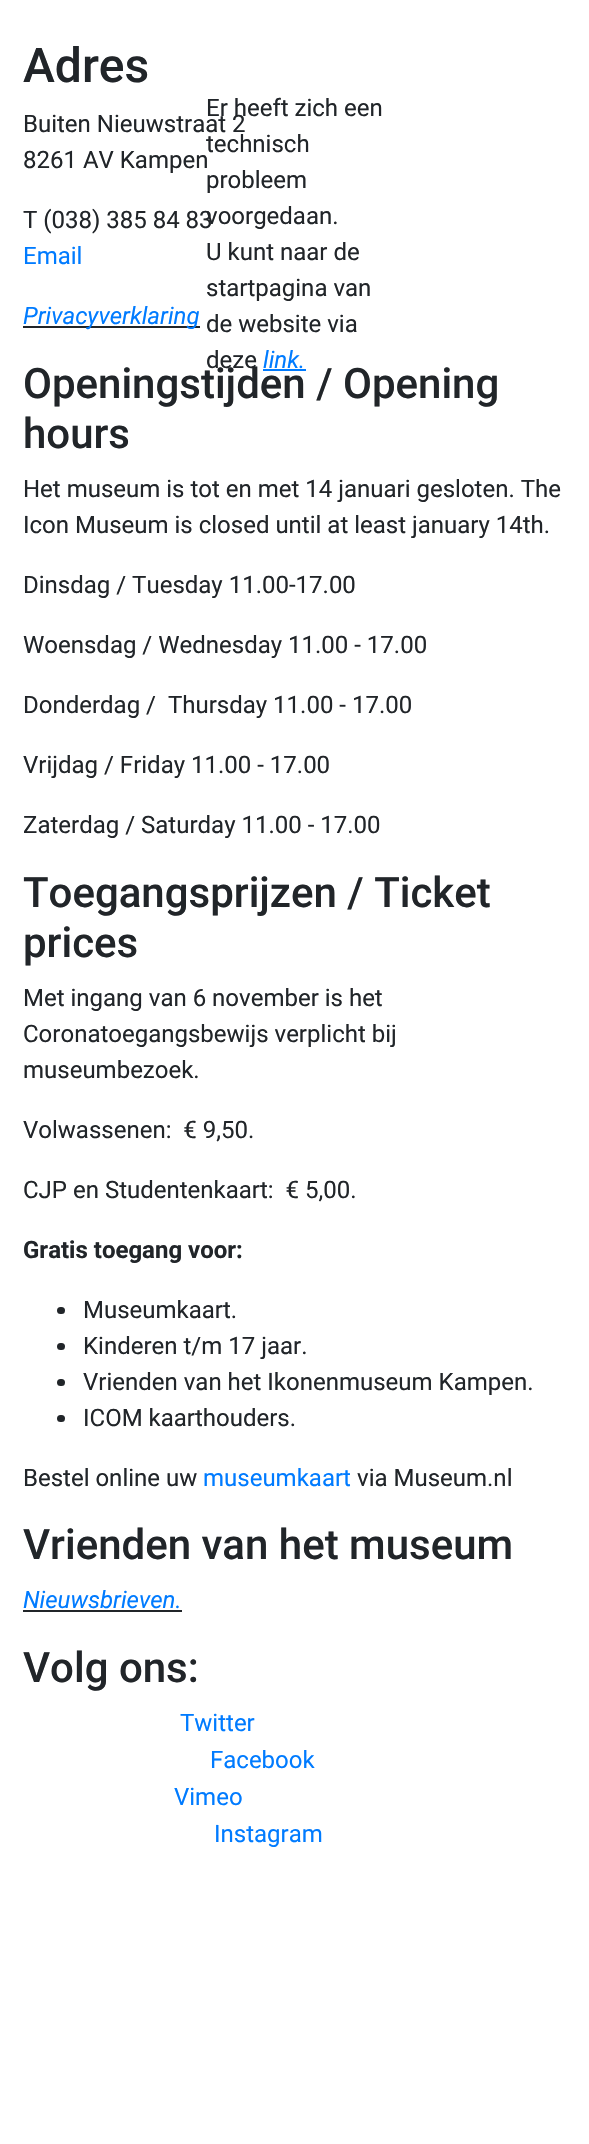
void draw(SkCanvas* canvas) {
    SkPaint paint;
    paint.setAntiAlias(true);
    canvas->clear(0xFFFFFFFF);
    SkFont font1(fontMgr->matchFamilyStyle("Roboto", SkFontStyle(500, SkFontStyle::kNormal_Width, SkFontStyle::kUpright_Slant)), 48);
    font1.setSubpixel(true);
    paint.setColor(0xFF212529);
    canvas->drawString("Adres", 23, 82, font1, paint);
    SkFont font2(fontMgr->matchFamilyStyle("Roboto", SkFontStyle::Normal()), 24);
    font2.setSubpixel(true);
    canvas->drawString("Buiten Nieuwstraat 2", 23, 132, font2, paint);
    canvas->drawString("8261 AV Kampen", 23, 168, font2, paint);
    canvas->drawString("voorgedaan.", 206, 224, font2, paint);
    canvas->drawString("T (038) 385 84 83", 23, 228, font2, paint);
    paint.setColor(0xFF007BFF);
    canvas->drawString("Email", 23, 264, font2, paint);
    paint.setColor(0xFF212529);
    canvas->drawRect(SkRect::MakeXYWH(23, 326, 177, 2), paint);
    SkFont font3(fontMgr->matchFamilyStyle("Roboto", SkFontStyle::Italic()), 24);
    font3.setSubpixel(true);
    paint.setColor(0xFF007BFF);
    canvas->drawString("Privacyverklaring", 23, 324, font3, paint);
    canvas->drawRect(SkRect::MakeXYWH(263, 369, 43, 2), paint);
    SkFont font4(fontMgr->matchFamilyStyle("Roboto", SkFontStyle(500, SkFontStyle::kNormal_Width, SkFontStyle::kUpright_Slant)), 42);
    font4.setSubpixel(true);
    paint.setColor(0xFF212529);
    canvas->drawString("Openingstijden / Opening", 23, 398, font4, paint);
    canvas->drawString("hours", 23, 448, font4, paint);
    canvas->drawString("Het museum is tot en met 14 januari gesloten. The", 23, 497, font2, paint);
    canvas->drawString("Icon Museum is closed until at least january 14th.", 23, 533, font2, paint);
    canvas->drawString("Dinsdag / Tuesday 11.00-17.00", 23, 593, font2, paint);
    canvas->drawString("Woensdag / Wednesday 11.00 - 17.00", 23, 653, font2, paint);
    canvas->drawString("Donderdag /  Thursday 11.00 - 17.00", 23, 713, font2, paint);
    canvas->drawString("Vrijdag / Friday 11.00 - 17.00", 23, 773, font2, paint);
    canvas->drawString("Zaterdag / Saturday 11.00 - 17.00", 23, 833, font2, paint);
    canvas->drawString("Toegangsprijzen / Ticket", 23, 907, font4, paint);
    canvas->drawString("prices", 23, 957, font4, paint);
    canvas->drawString("Met ingang van 6 november is het", 23, 1006, font2, paint);
    canvas->drawString("Coronatoegangsbewijs verplicht bij", 23, 1042, font2, paint);
    canvas->drawString("museumbezoek.", 23, 1078, font2, paint);
    canvas->drawString("Volwassenen:  € 9,50.", 23, 1138, font2, paint);
    canvas->drawString("CJP en Studentenkaart:  € 5,00.", 23, 1198, font2, paint);
    SkFont font5(fontMgr->matchFamilyStyle("Roboto", SkFontStyle::Bold()), 24);
    font5.setSubpixel(true);
    canvas->drawString("Gratis toegang voor:", 23, 1258, font5, paint);
    canvas->drawRoundRect(SkRect::MakeXYWH(57, 1307, 8, 7), 3.5f, 3.5f, paint);
    canvas->drawString("Museumkaart.", 83, 1318, font2, paint);
    canvas->drawRoundRect(SkRect::MakeXYWH(57, 1343, 8, 7), 3.5f, 3.5f, paint);
    canvas->drawString("Kinderen t/m 17 jaar.", 83, 1354, font2, paint);
    canvas->drawRoundRect(SkRect::MakeXYWH(57, 1379, 8, 7), 3.5f, 3.5f, paint);
    canvas->drawString("Vrienden van het Ikonenmuseum Kampen.", 83, 1390, font2, paint);
    canvas->drawRoundRect(SkRect::MakeXYWH(57, 1415, 8, 7), 3.5f, 3.5f, paint);
    canvas->drawString("ICOM kaarthouders.", 83, 1426, font2, paint);
    canvas->drawString("Bestel online uw", 23, 1486, font2, paint);
    paint.setColor(0xFF007BFF);
    canvas->drawString("museumkaart", 203, 1486, font2, paint);
    paint.setColor(0xFF212529);
    canvas->drawString("via Museum.nl", 357, 1486, font2, paint);
    canvas->drawString("Vrienden van het museum", 23, 1559, font4, paint);
    paint.setColor(0xFF007BFF);
    canvas->drawString("Nieuwsbrieven.", 23, 1608, font3, paint);
    paint.setColor(0xFF212529);
    canvas->drawRect(SkRect::MakeXYWH(23, 1610, 159, 2), paint);
    canvas->drawString("Volg ons:", 23, 1682, font4, paint);
    paint.setColor(0xFF007BFF);
    canvas->drawString("Twitter", 180, 1731, font2, paint);
    canvas->drawString("Facebook", 210, 1768, font2, paint);
    canvas->drawString("Vimeo", 174, 1805, font2, paint);
    canvas->drawString("Instagram", 214, 1842, font2, paint);
    paint.setColor(0xFF212529);
    canvas->drawString("Er heeft zich een", 206, 116, font2, paint);
    canvas->drawString("technisch", 206, 152, font2, paint);
    canvas->drawString("probleem", 206, 188, font2, paint);
    canvas->drawString("U kunt naar de", 206, 260, font2, paint);
    canvas->drawString("startpagina van", 206, 296, font2, paint);
    canvas->drawString("de website via", 206, 332, font2, paint);
    canvas->drawString("deze", 206, 368, font2, paint);
    paint.setColor(0xFF007BFF);
    canvas->drawString("link.", 263, 368, font3, paint);
}
